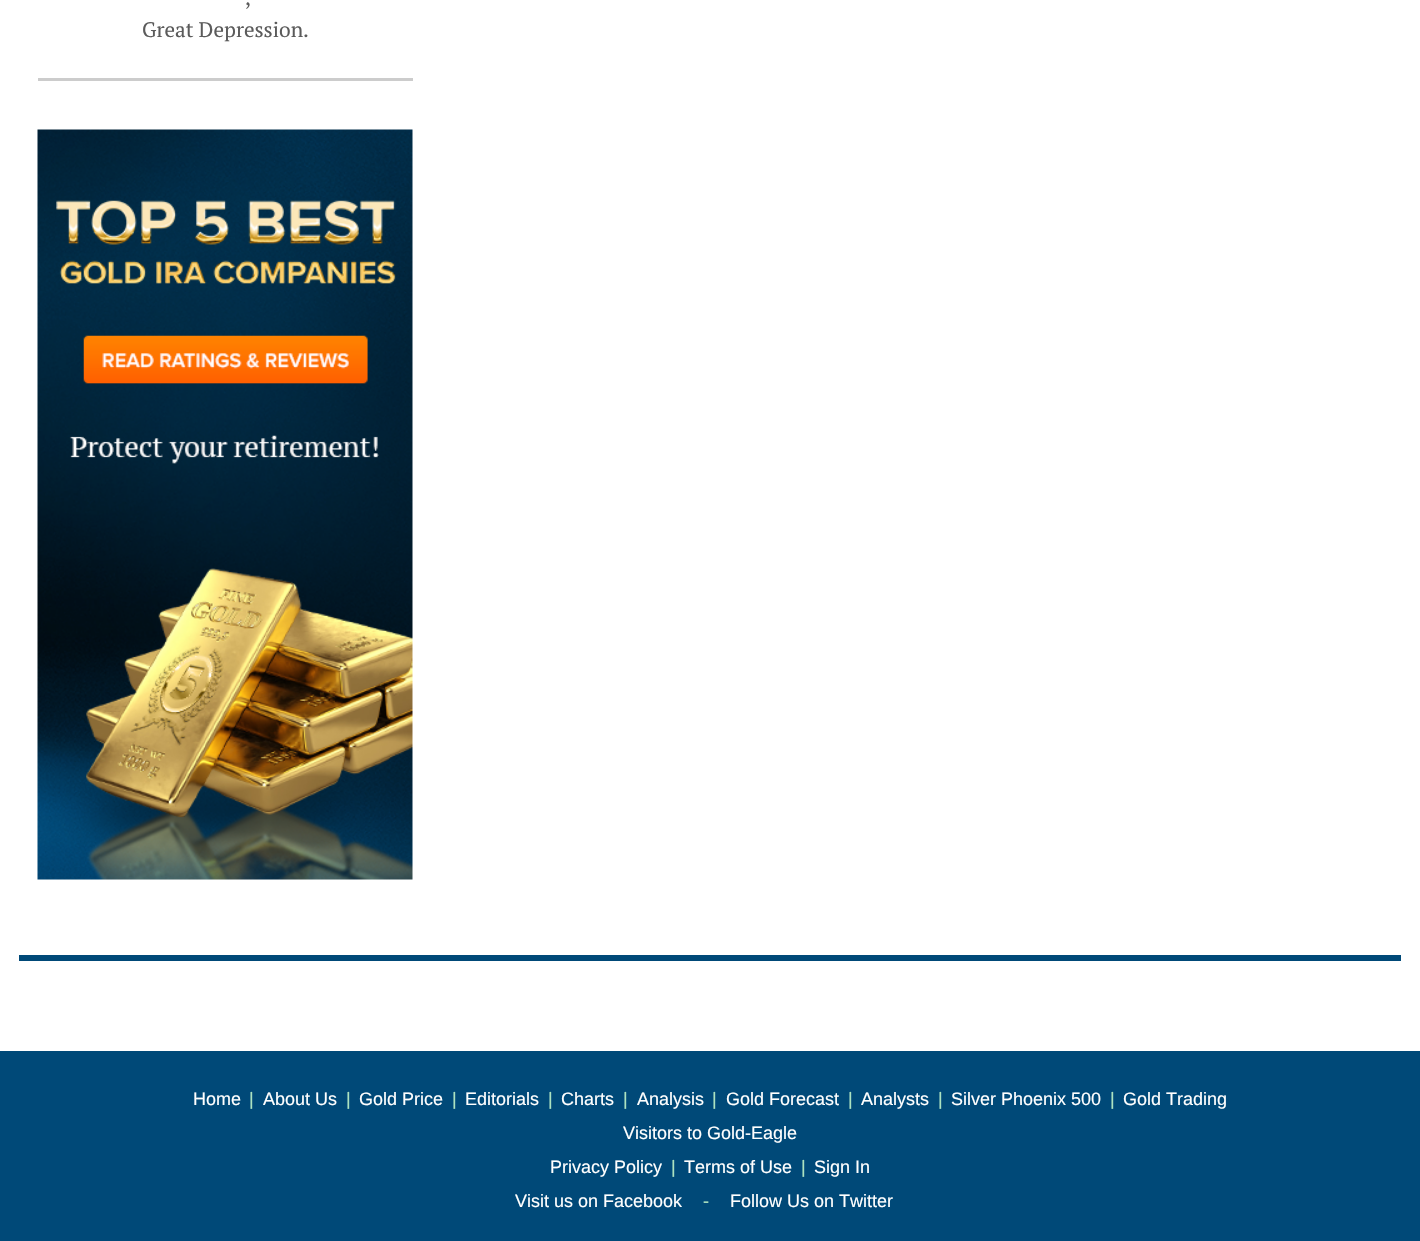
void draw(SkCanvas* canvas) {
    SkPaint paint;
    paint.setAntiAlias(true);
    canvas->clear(0xFF004978);
    paint.setColor(0xFFFFFFFF);
    canvas->drawRect(SkRect::MakeXYWH(0, 0, 1420, 1051), paint);
    SkFont font1(fontMgr->matchFamilyStyle("PT Serif", SkFontStyle::Normal()), 21);
    font1.setSubpixel(true);
    paint.setColor(0xFF5B5B5B);
    canvas->drawString(",", 245, 5, font1, paint);
    canvas->drawString("Great Depression.", 142, 37, font1, paint);
    paint.setColor(0xFFCCCCCC);
    canvas->drawRect(SkRect::MakeXYWH(38, 78, 375, 3), paint);
    canvas->drawImageRect(SkImages::DeferredFromEncodedData(SkData::MakeFromFileName("img1.png")), SkRect::MakeXYWH(37, 129, 376, 751), SkSamplingOptions());
    paint.setColor(0xFF004978);
    canvas->drawRect(SkRect::MakeXYWH(19, 955, 1382, 6), paint);
    SkFont font2(fontMgr->matchFamilyStyle("Liberation Sans", SkFontStyle::Normal()), 18);
    font2.setSubpixel(true);
    paint.setColor(0xFFFFFFFF);
    canvas->drawString("Home", 193, 1105, font2, paint);
    paint.setColor(0xFFACE2C0);
    canvas->drawString("|", 249, 1105, font2, paint);
    paint.setColor(0xFFFFFFFF);
    canvas->drawString("About Us", 263, 1105, font2, paint);
    paint.setColor(0xFFACE2C0);
    canvas->drawString("|", 346, 1105, font2, paint);
    paint.setColor(0xFFFFFFFF);
    canvas->drawString("Gold Price", 359, 1105, font2, paint);
    paint.setColor(0xFFACE2C0);
    canvas->drawString("|", 452, 1105, font2, paint);
    paint.setColor(0xFFFFFFFF);
    canvas->drawString("Editorials", 465, 1105, font2, paint);
    paint.setColor(0xFFACE2C0);
    canvas->drawString("|", 548, 1105, font2, paint);
    paint.setColor(0xFFFFFFFF);
    canvas->drawString("Charts", 561, 1105, font2, paint);
    paint.setColor(0xFFACE2C0);
    canvas->drawString("|", 623, 1105, font2, paint);
    paint.setColor(0xFFFFFFFF);
    canvas->drawString("Analysis", 637, 1105, font2, paint);
    paint.setColor(0xFFACE2C0);
    canvas->drawString("|", 712, 1105, font2, paint);
    paint.setColor(0xFFFFFFFF);
    canvas->drawString("Gold Forecast", 726, 1105, font2, paint);
    paint.setColor(0xFFACE2C0);
    canvas->drawString("|", 848, 1105, font2, paint);
    paint.setColor(0xFFFFFFFF);
    canvas->drawString("Analysts", 861, 1105, font2, paint);
    paint.setColor(0xFFACE2C0);
    canvas->drawString("|", 938, 1105, font2, paint);
    paint.setColor(0xFFFFFFFF);
    canvas->drawString("Silver Phoenix 500", 951, 1105, font2, paint);
    paint.setColor(0xFFACE2C0);
    canvas->drawString("|", 1110, 1105, font2, paint);
    paint.setColor(0xFFFFFFFF);
    canvas->drawString("Gold Trading", 1123, 1105, font2, paint);
    canvas->drawString("Visitors to Gold-Eagle", 623, 1139, font2, paint);
    canvas->drawString("Privacy Policy", 550, 1173, font2, paint);
    paint.setColor(0xFFACE2C0);
    canvas->drawString("|", 671, 1173, font2, paint);
    paint.setColor(0xFFFFFFFF);
    canvas->drawString("Terms of Use", 684, 1173, font2, paint);
    paint.setColor(0xFFACE2C0);
    canvas->drawString("|", 801, 1173, font2, paint);
    paint.setColor(0xFFFFFFFF);
    canvas->drawString("Sign In", 814, 1173, font2, paint);
    canvas->drawString("Visit us on Facebook", 515, 1207, font2, paint);
    paint.setColor(0xFFACE2C0);
    canvas->drawString("-", 703, 1207, font2, paint);
    paint.setColor(0xFFFFFFFF);
    canvas->drawString("Follow Us on Twitter", 730, 1207, font2, paint);
}
